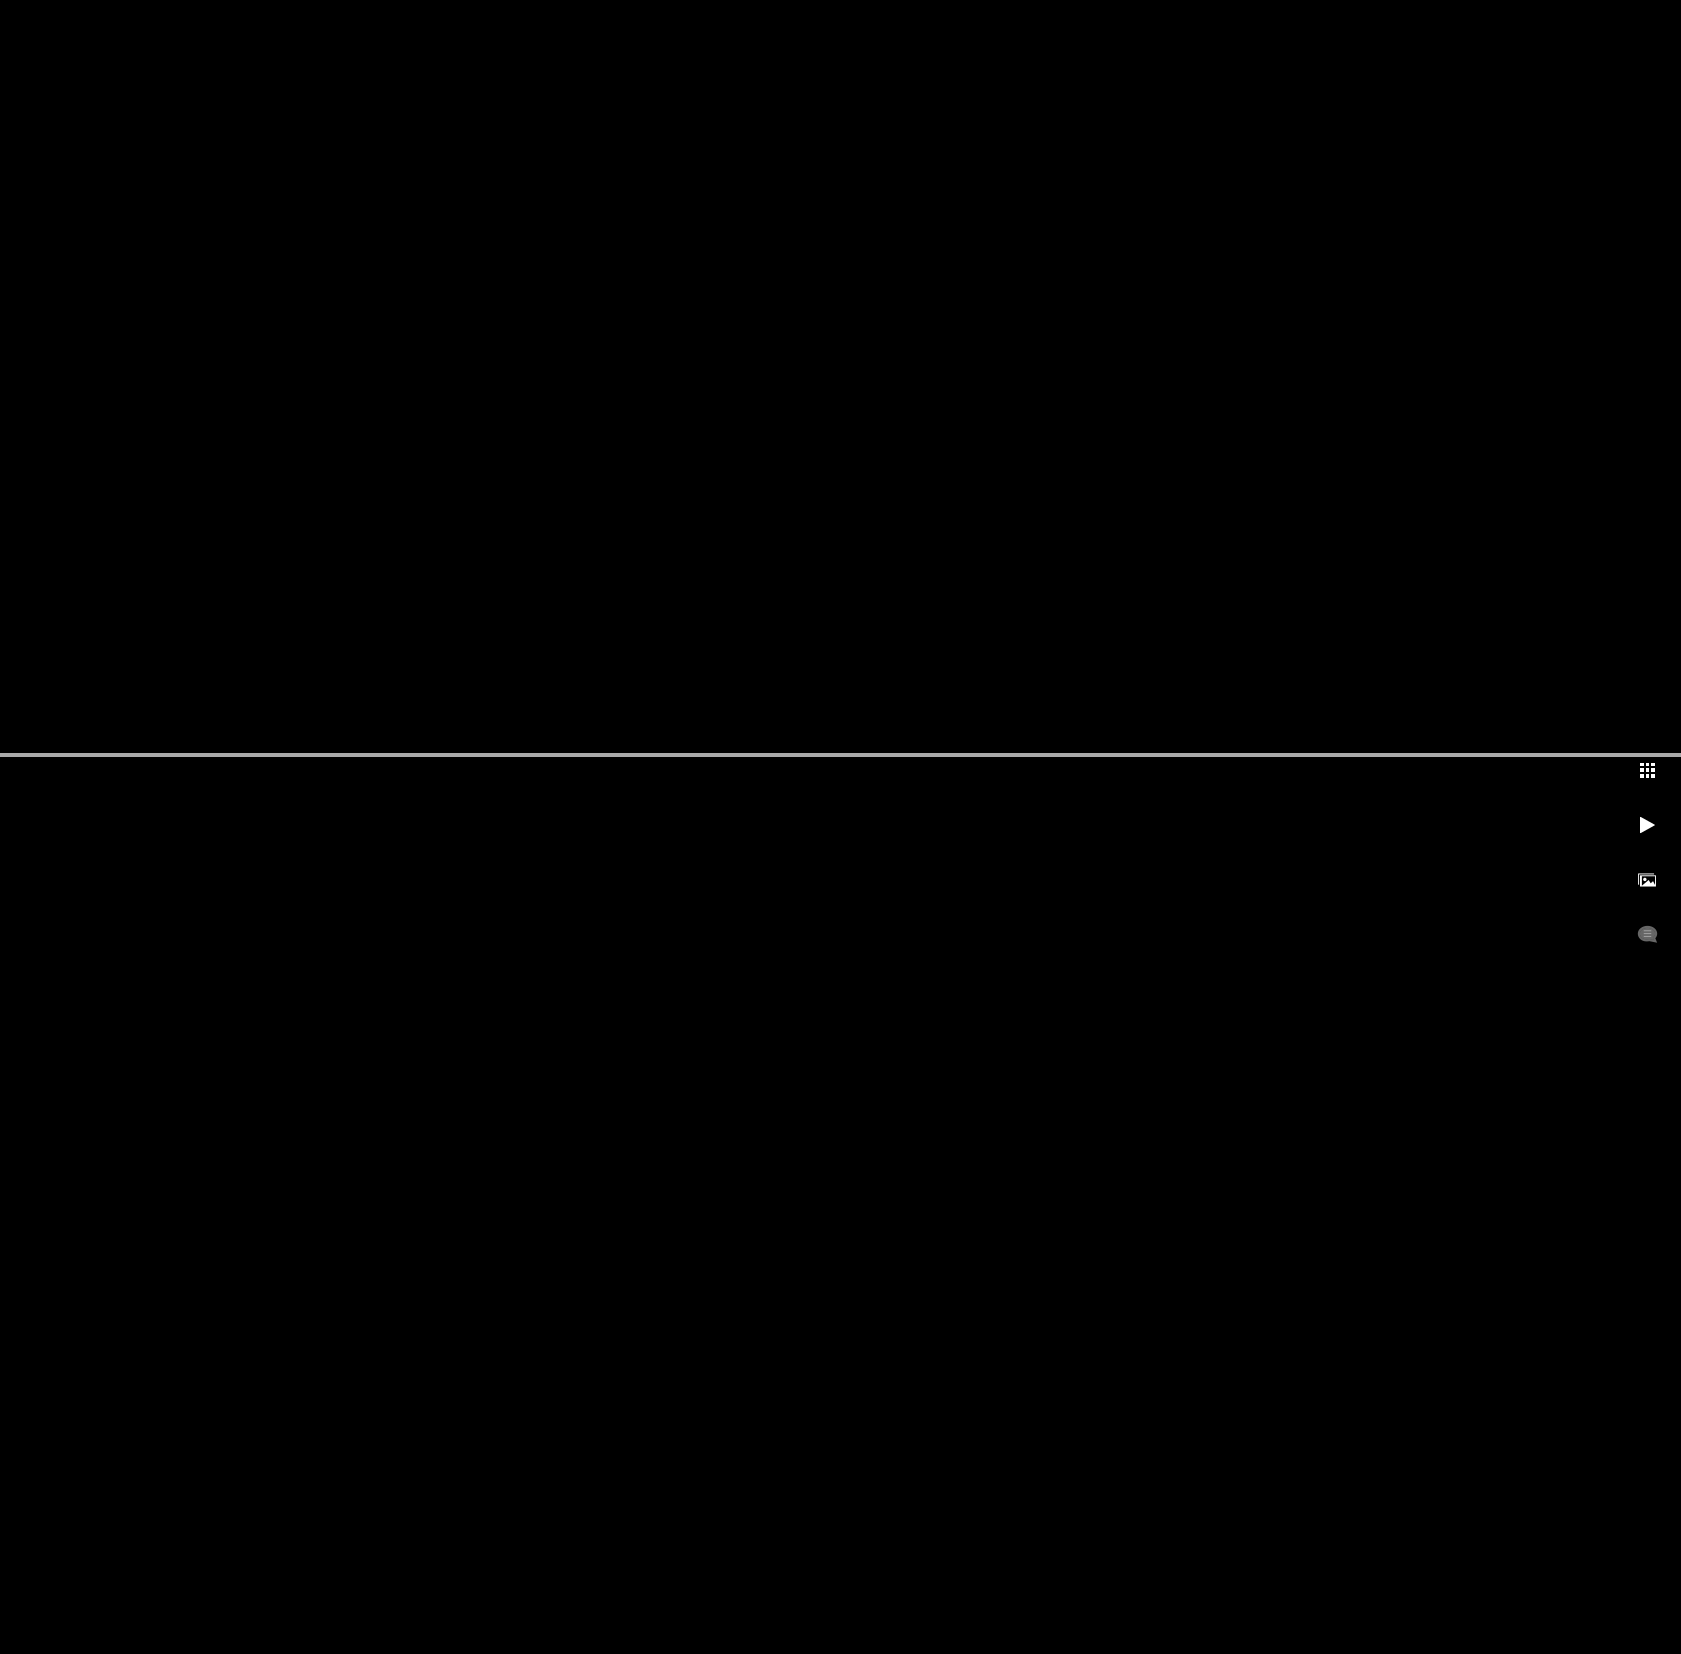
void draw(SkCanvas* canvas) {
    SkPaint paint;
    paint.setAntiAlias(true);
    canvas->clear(0xFF000000);
    paint.setColor(0xFFA9A9A9);
    canvas->drawRect(SkRect::MakeXYWH(0, 753, 1681, 4), paint);
    canvas->drawImageRect(SkImages::DeferredFromEncodedData(SkData::MakeFromFileName("img1.png")), SkRect::MakeXYWH(1640, 763, 15, 15), SkSamplingOptions());
    canvas->drawImageRect(SkImages::DeferredFromEncodedData(SkData::MakeFromFileName("img2.png")), SkRect::MakeXYWH(1640, 816, 15, 18), SkSamplingOptions());
    canvas->drawImageRect(SkImages::DeferredFromEncodedData(SkData::MakeFromFileName("img3.png")), SkRect::MakeXYWH(1638, 873, 18, 14), SkSamplingOptions());
    canvas->drawImageRect(SkImages::DeferredFromEncodedData(SkData::MakeFromFileName("img4.png")), SkRect::MakeXYWH(1637, 925, 21, 18), SkSamplingOptions());
}
